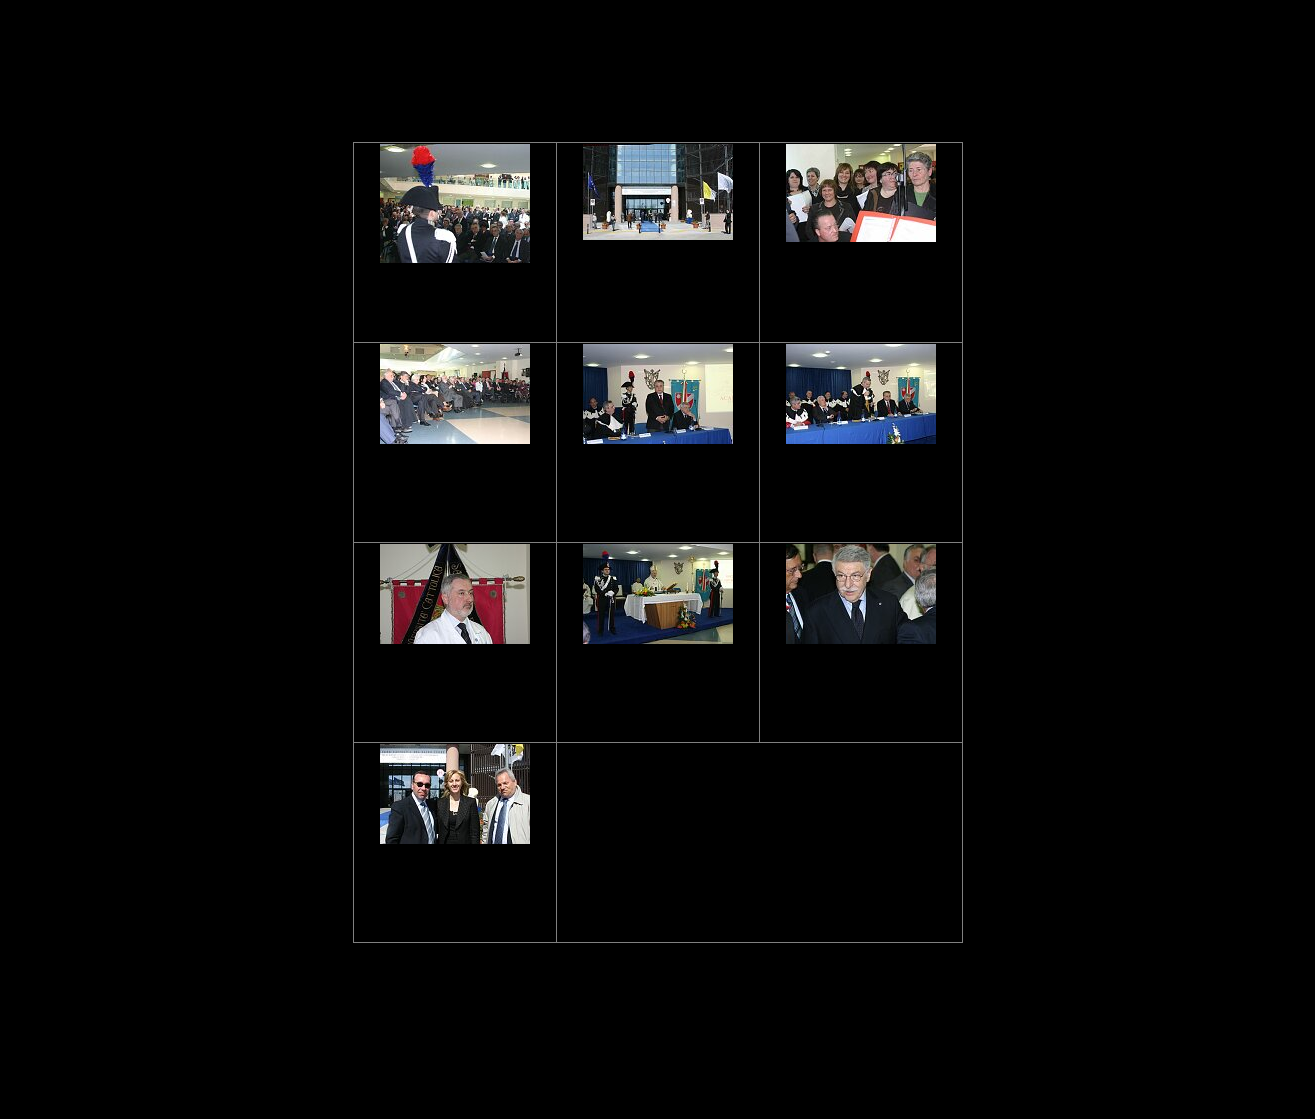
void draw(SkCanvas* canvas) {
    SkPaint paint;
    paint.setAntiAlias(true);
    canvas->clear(0xFF000000);
    paint.setColor(0xFF808080);
    canvas->drawRect(SkRect::MakeXYWH(353, 142, 610, 1), paint);
    canvas->drawRect(SkRect::MakeXYWH(962, 142, 1, 801), paint);
    canvas->drawRect(SkRect::MakeXYWH(353, 942, 610, 1), paint);
    canvas->drawRect(SkRect::MakeXYWH(353, 142, 1, 801), paint);
    canvas->drawImageRect(SkImages::DeferredFromEncodedData(SkData::MakeFromFileName("img1.png")), SkRect::MakeXYWH(380, 144, 150, 119), SkSamplingOptions());
    canvas->drawRect(SkRect::MakeXYWH(759, 342, 204, 1), paint);
    canvas->drawRect(SkRect::MakeXYWH(759, 542, 204, 1), paint);
    canvas->drawRect(SkRect::MakeXYWH(759, 742, 204, 1), paint);
    canvas->drawRect(SkRect::MakeXYWH(759, 542, 1, 201), paint);
    canvas->drawRect(SkRect::MakeXYWH(556, 542, 204, 1), paint);
    canvas->drawRect(SkRect::MakeXYWH(759, 342, 1, 201), paint);
    canvas->drawRect(SkRect::MakeXYWH(556, 342, 204, 1), paint);
    canvas->drawRect(SkRect::MakeXYWH(353, 742, 204, 1), paint);
    canvas->drawRect(SkRect::MakeXYWH(556, 742, 1, 201), paint);
    canvas->drawRect(SkRect::MakeXYWH(556, 742, 204, 1), paint);
    canvas->drawRect(SkRect::MakeXYWH(556, 542, 1, 201), paint);
    canvas->drawRect(SkRect::MakeXYWH(353, 542, 204, 1), paint);
    canvas->drawRect(SkRect::MakeXYWH(556, 342, 1, 201), paint);
    canvas->drawRect(SkRect::MakeXYWH(353, 342, 204, 1), paint);
    canvas->drawRect(SkRect::MakeXYWH(556, 142, 1, 201), paint);
    canvas->drawImageRect(SkImages::DeferredFromEncodedData(SkData::MakeFromFileName("img2.png")), SkRect::MakeXYWH(583, 144, 150, 96), SkSamplingOptions());
    canvas->drawRect(SkRect::MakeXYWH(759, 142, 1, 201), paint);
    canvas->drawImageRect(SkImages::DeferredFromEncodedData(SkData::MakeFromFileName("img3.png")), SkRect::MakeXYWH(786, 144, 150, 98), SkSamplingOptions());
    canvas->drawImageRect(SkImages::DeferredFromEncodedData(SkData::MakeFromFileName("img4.png")), SkRect::MakeXYWH(380, 344, 150, 100), SkSamplingOptions());
    canvas->drawImageRect(SkImages::DeferredFromEncodedData(SkData::MakeFromFileName("img5.png")), SkRect::MakeXYWH(583, 344, 150, 100), SkSamplingOptions());
    canvas->drawImageRect(SkImages::DeferredFromEncodedData(SkData::MakeFromFileName("img6.png")), SkRect::MakeXYWH(786, 344, 150, 100), SkSamplingOptions());
    canvas->drawImageRect(SkImages::DeferredFromEncodedData(SkData::MakeFromFileName("img7.png")), SkRect::MakeXYWH(380, 544, 150, 100), SkSamplingOptions());
    canvas->drawImageRect(SkImages::DeferredFromEncodedData(SkData::MakeFromFileName("img8.png")), SkRect::MakeXYWH(583, 544, 150, 100), SkSamplingOptions());
    canvas->drawImageRect(SkImages::DeferredFromEncodedData(SkData::MakeFromFileName("img9.png")), SkRect::MakeXYWH(786, 544, 150, 100), SkSamplingOptions());
    canvas->drawImageRect(SkImages::DeferredFromEncodedData(SkData::MakeFromFileName("img10.png")), SkRect::MakeXYWH(380, 744, 150, 100), SkSamplingOptions());
}
